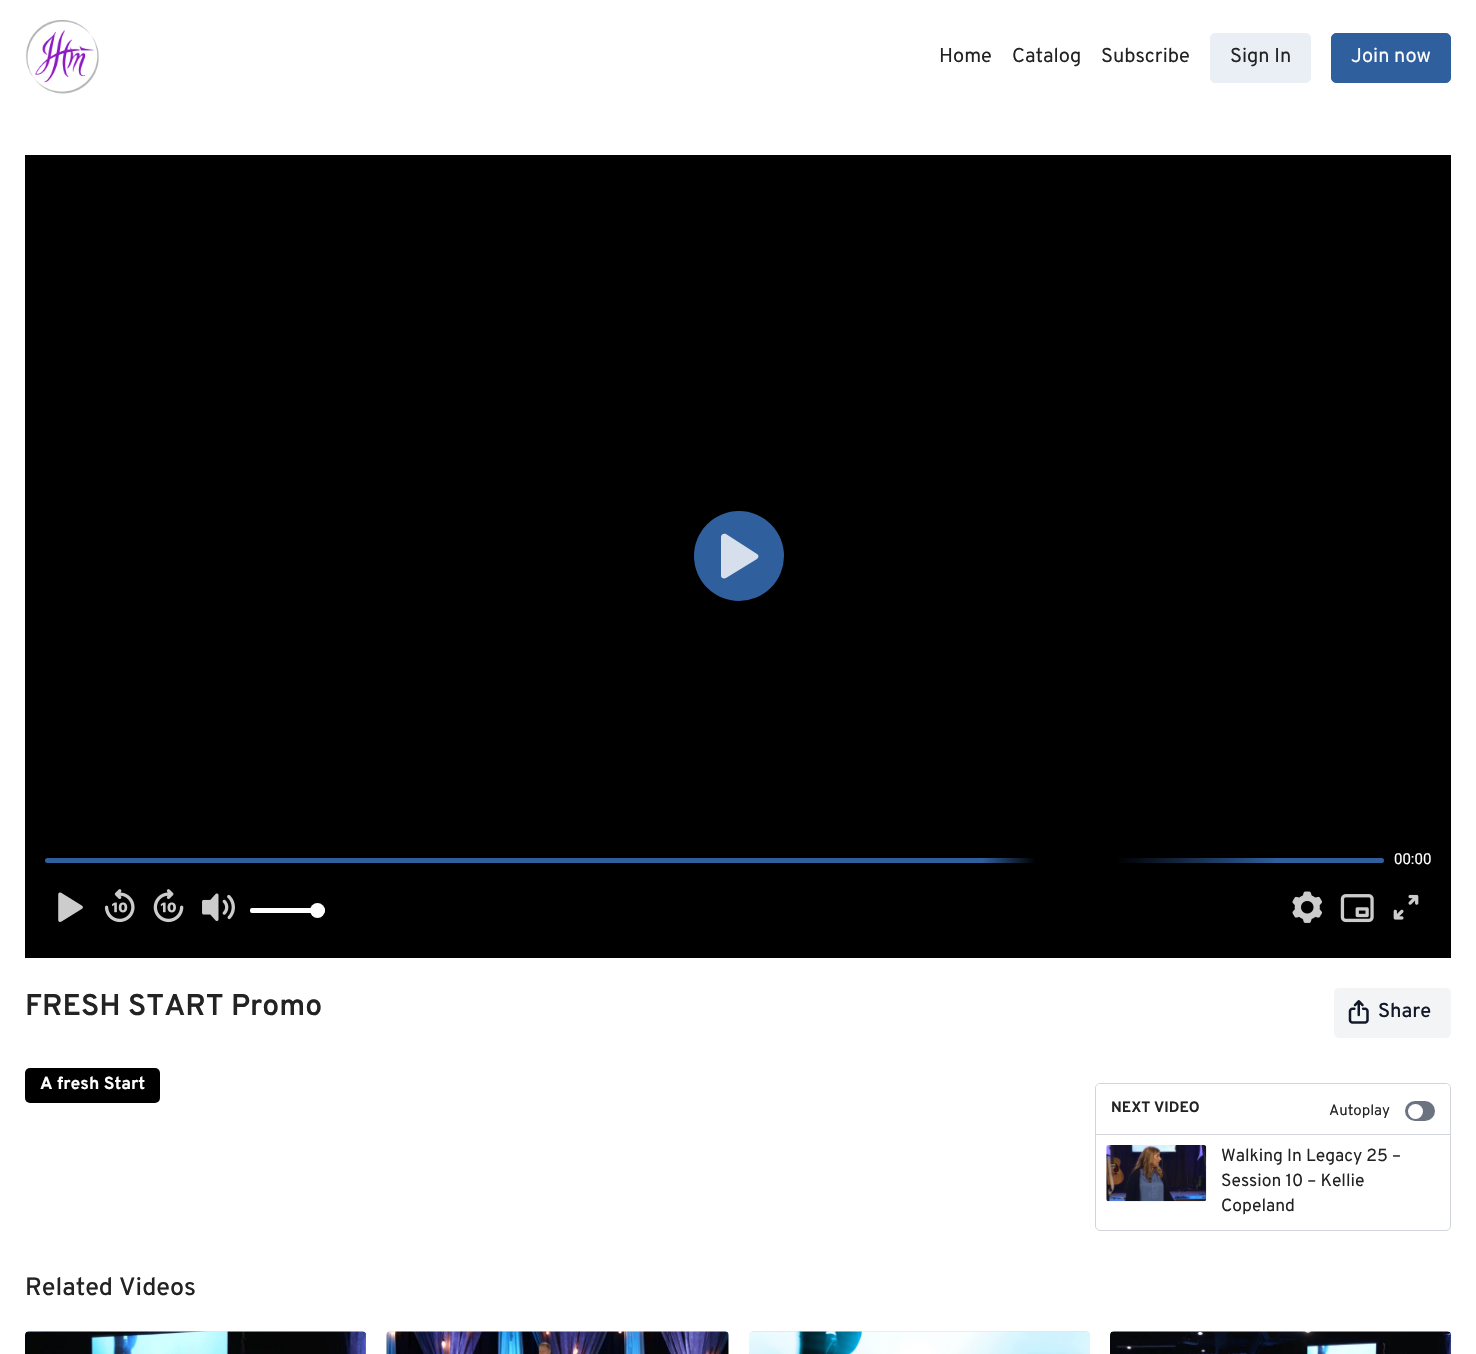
void draw(SkCanvas* canvas) {
    SkPaint paint;
    paint.setAntiAlias(true);
    canvas->clear(0xFFFFFFFF);
    canvas->drawImageRect(SkImages::DeferredFromEncodedData(SkData::MakeFromFileName("img1.png")), SkRect::MakeXYWH(25, 20, 74, 74), SkSamplingOptions());
    SkFont font1(fontMgr->matchFamilyStyle("Overpass", SkFontStyle::Normal()), 20);
    font1.setSubpixel(true);
    paint.setColor(0xFF232323);
    canvas->drawString("Home", 939, 62, font1, paint);
    canvas->drawString("Catalog", 1012, 62, font1, paint);
    canvas->drawString("Subscribe", 1101, 62, font1, paint);
    paint.setColor(0xFFEAEFF5);
    canvas->drawRoundRect(SkRect::MakeXYWH(1210.5f, 33.5f, 100, 49), 4.5f, 4.5f, paint);
    paint.setStyle(SkPaint::kStroke_Style);
    paint.setStrokeWidth(1);
    canvas->drawRoundRect(SkRect::MakeXYWH(1210.5f, 33.5f, 100, 49), 4.5f, 4.5f, paint);
    paint.setStyle(SkPaint::kFill_Style);
    paint.setColor(0xFF232323);
    canvas->drawString("Sign In", 1230, 62, font1, paint);
    paint.setColor(0xFF305F9D);
    canvas->drawRoundRect(SkRect::MakeXYWH(1331.5f, 33.5f, 119, 49), 4.5f, 4.5f, paint);
    paint.setStyle(SkPaint::kStroke_Style);
    canvas->drawRoundRect(SkRect::MakeXYWH(1331.5f, 33.5f, 119, 49), 4.5f, 4.5f, paint);
    paint.setStyle(SkPaint::kFill_Style);
    paint.setColor(0xFFFFFFFF);
    canvas->drawString("Join now", 1351, 62, font1, paint);
    paint.setColor(0xFF000000);
    canvas->drawRect(SkRect::MakeXYWH(25, 155, 1426, 803), paint);
    paint.setColor(0xFF305F9D);
    canvas->drawCircle(739, 556, 45, paint);
    paint.setColor(0xFFD6DFEB);
    canvas->drawPath(SkPathBuilder().moveTo(726, 534).cubicTo(724, 533, 721, 534, 721, 537).lineTo(721, 576).cubicTo(721, 578, 724, 579, 726, 578).lineTo(757, 559).cubicTo(759, 557, 759, 555, 757, 554).close().detach(), paint);
    {
        const SkColor colors[] = {0xFF305F9D, 0xFF000000, 0xFF000000, 0xFF305F9D, 0xFF305F9D};
        const float stops[] = {0.35f, 0.37f, 0.4f, 0.46f, 1};
        const SkPoint ends[] = {{45, 863}, {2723, 862}};
        paint.setShader(SkGradientShader::MakeLinear(ends, colors, stops, 5, SkTileMode::kClamp));
        paint.setAlpha(255);
    }
    canvas->drawRoundRect(SkRect::MakeXYWH(45, 858, 1339, 5), 2.5f, 2.5f, paint);
    SkFont font2(fontMgr->matchFamilyStyle("Roboto", SkFontStyle::Normal()), 15);
    font2.setSubpixel(true);
    paint.setShader(nullptr);
    paint.setColor(0xFFFFFFFF);
    canvas->drawString("00:00", 1394, 864, font2, paint);
    canvas->drawImageRect(SkImages::DeferredFromEncodedData(SkData::MakeFromFileName("img2.png")), SkRect::MakeXYWH(58, 892, 25, 30), SkSamplingOptions());
    canvas->drawImageRect(SkImages::DeferredFromEncodedData(SkData::MakeFromFileName("img3.png")), SkRect::MakeXYWH(104, 889, 31, 34), SkSamplingOptions());
    canvas->drawImageRect(SkImages::DeferredFromEncodedData(SkData::MakeFromFileName("img4.png")), SkRect::MakeXYWH(153, 889, 31, 34), SkSamplingOptions());
    canvas->drawImageRect(SkImages::DeferredFromEncodedData(SkData::MakeFromFileName("img5.png")), SkRect::MakeXYWH(202, 893, 33, 28), SkSamplingOptions());
    canvas->drawRoundRect(SkRect::MakeXYWH(250, 908, 75, 5), 2, 2, paint);
    canvas->drawCircle(317.5f, 910.5f, 7.5f, paint);
    canvas->drawImageRect(SkImages::DeferredFromEncodedData(SkData::MakeFromFileName("img6.png")), SkRect::MakeXYWH(1292, 891, 30, 32), SkSamplingOptions());
    canvas->drawImageRect(SkImages::DeferredFromEncodedData(SkData::MakeFromFileName("img7.png")), SkRect::MakeXYWH(1340, 894, 34, 29), SkSamplingOptions());
    canvas->drawImageRect(SkImages::DeferredFromEncodedData(SkData::MakeFromFileName("img8.png")), SkRect::MakeXYWH(1393, 894, 26, 26), SkSamplingOptions());
    SkFont font3(fontMgr->matchFamilyStyle("Overpass", SkFontStyle(600, SkFontStyle::kNormal_Width, SkFontStyle::kUpright_Slant)), 30);
    font3.setSubpixel(true);
    paint.setColor(0xFF232323);
    canvas->drawString("FRESH START Promo", 25, 1015, font3, paint);
    paint.setColor(0xFFF3F4F6);
    canvas->drawRoundRect(SkRect::MakeXYWH(1334, 988, 117, 50), 5, 5, paint);
    canvas->drawImageRect(SkImages::DeferredFromEncodedData(SkData::MakeFromFileName("img9.png")), SkRect::MakeXYWH(1348, 1000, 21, 24), SkSamplingOptions());
    SkFont font4(fontMgr->matchFamilyStyle("Overpass", SkFontStyle(500, SkFontStyle::kNormal_Width, SkFontStyle::kUpright_Slant)), 20);
    font4.setSubpixel(true);
    paint.setColor(0xFF111827);
    canvas->drawString("Share", 1378, 1017, font4, paint);
    paint.setColor(0xFF000000);
    canvas->drawRoundRect(SkRect::MakeXYWH(25, 1068, 135, 35), 5, 5, paint);
    SkFont font5(fontMgr->matchFamilyStyle("Overpass", SkFontStyle::Bold()), 17.5f);
    font5.setSubpixel(true);
    paint.setColor(0xFFFFFFFF);
    canvas->drawString("A fresh Start", 40, 1089, font5, paint);
    paint.setStyle(SkPaint::kStroke_Style);
    paint.setColor(0xFFD1D5DB);
    canvas->drawRoundRect(SkRect::MakeXYWH(1095.5f, 1083.5f, 355, 147), 4.5f, 4.5f, paint);
    paint.setStyle(SkPaint::kFill_Style);
    paint.setColor(0xFFFFFFFF);
    canvas->drawPath(SkPathBuilder().moveTo(1100, 1084).lineTo(1446, 1084).cubicTo(1448, 1084, 1450, 1086, 1450, 1088).lineTo(1450, 1134).lineTo(1096, 1134).lineTo(1096, 1088).cubicTo(1096, 1086, 1098, 1084, 1100, 1084).close().detach(), paint);
    paint.setColor(0xFFD1D5DB);
    canvas->drawRect(SkRect::MakeXYWH(1096, 1134, 354, 1), paint);
    SkFont font6(fontMgr->matchFamilyStyle("Overpass", SkFontStyle::Bold()), 15);
    font6.setSubpixel(true);
    paint.setColor(0xFF232323);
    canvas->drawString("NEXT VIDEO", 1111, 1112, font6, paint);
    SkFont font7(fontMgr->matchFamilyStyle("Overpass", SkFontStyle::Normal()), 15);
    font7.setSubpixel(true);
    canvas->drawString("Autoplay", 1329, 1115, font7, paint);
    paint.setColor(0xFF6B7280);
    canvas->drawRoundRect(SkRect::MakeXYWH(1405, 1101, 30, 20), 10, 10, paint);
    paint.setColor(0xFFFFFFFF);
    canvas->drawCircle(1415.5f, 1111.5f, 7.5f, paint);
    canvas->drawImageRect(SkImages::DeferredFromEncodedData(SkData::MakeFromFileName("img10.png")), SkRect::MakeXYWH(1106, 1145, 101, 57), SkSamplingOptions());
    SkFont font8(fontMgr->matchFamilyStyle("Overpass", SkFontStyle::Normal()), 17.5f);
    font8.setSubpixel(true);
    paint.setColor(0xFF232323);
    canvas->drawString("Walking In Legacy 25 –", 1221, 1161, font8, paint);
    canvas->drawString("Session 10 – Kellie", 1221, 1186, font8, paint);
    canvas->drawString("Copeland", 1221, 1211, font8, paint);
    SkFont font9(fontMgr->matchFamilyStyle("Overpass", SkFontStyle(500, SkFontStyle::kNormal_Width, SkFontStyle::kUpright_Slant)), 25);
    font9.setSubpixel(true);
    canvas->drawString("Related Videos", 25, 1295, font9, paint);
    {
        const SkColor colors[] = {0xFFDEDEDE, 0xFFE0E0E0, 0xFFE3E3E3};
        const float stops[] = {0.08f, 0.18f, 0.33f};
        const SkPoint ends[] = {{25, 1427}, {366, 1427}};
        paint.setShader(SkGradientShader::MakeLinear(ends, colors, stops, 3, SkTileMode::kClamp));
        paint.setAlpha(255);
    }
    canvas->drawRoundRect(SkRect::MakeXYWH(25, 1331, 341, 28), 5, 5, paint);
    canvas->drawImageRect(SkImages::DeferredFromEncodedData(SkData::MakeFromFileName("img11.png")), SkRect::MakeXYWH(25, 1331, 341, 23), SkSamplingOptions());
    {
        const SkColor colors[] = {0xFFDEDEDE, 0xFFE0E0E0, 0xFFE3E3E3};
        const float stops[] = {0.08f, 0.18f, 0.33f};
        const SkPoint ends[] = {{386, 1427}, {729, 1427}};
        paint.setShader(SkGradientShader::MakeLinear(ends, colors, stops, 3, SkTileMode::kClamp));
        paint.setAlpha(255);
    }
    canvas->drawRoundRect(SkRect::MakeXYWH(386, 1331, 343, 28), 5, 5, paint);
    canvas->drawImageRect(SkImages::DeferredFromEncodedData(SkData::MakeFromFileName("img12.png")), SkRect::MakeXYWH(386, 1331, 343, 23), SkSamplingOptions());
    {
        const SkColor colors[] = {0xFFDEDEDE, 0xFFE0E0E0, 0xFFE3E3E3};
        const float stops[] = {0.08f, 0.18f, 0.33f};
        const SkPoint ends[] = {{749, 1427}, {1090, 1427}};
        paint.setShader(SkGradientShader::MakeLinear(ends, colors, stops, 3, SkTileMode::kClamp));
        paint.setAlpha(255);
    }
    canvas->drawRoundRect(SkRect::MakeXYWH(749, 1331, 341, 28), 5, 5, paint);
    canvas->drawImageRect(SkImages::DeferredFromEncodedData(SkData::MakeFromFileName("img13.png")), SkRect::MakeXYWH(749, 1331, 341, 23), SkSamplingOptions());
    {
        const SkColor colors[] = {0xFFDEDEDE, 0xFFE0E0E0, 0xFFE3E3E3};
        const float stops[] = {0.08f, 0.18f, 0.33f};
        const SkPoint ends[] = {{1110, 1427}, {1451, 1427}};
        paint.setShader(SkGradientShader::MakeLinear(ends, colors, stops, 3, SkTileMode::kClamp));
        paint.setAlpha(255);
    }
    canvas->drawRoundRect(SkRect::MakeXYWH(1110, 1331, 341, 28), 5, 5, paint);
    canvas->drawImageRect(SkImages::DeferredFromEncodedData(SkData::MakeFromFileName("img14.png")), SkRect::MakeXYWH(1110, 1331, 341, 23), SkSamplingOptions());
}
